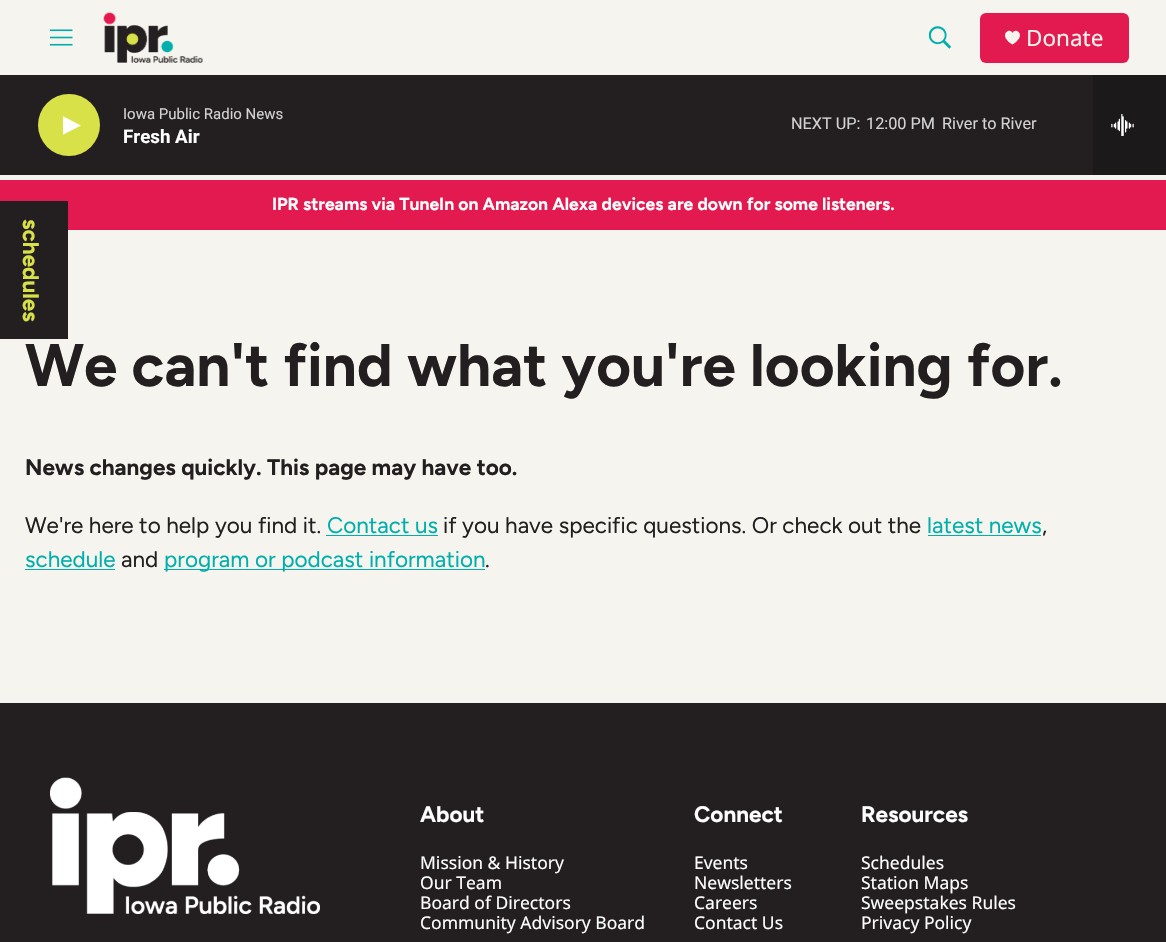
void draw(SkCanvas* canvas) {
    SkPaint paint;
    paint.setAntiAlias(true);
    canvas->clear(0xFFF5F4EE);
    canvas->drawImageRect(SkImages::DeferredFromEncodedData(SkData::MakeFromFileName("img1.png")), SkRect::MakeXYWH(50, 29, 23, 17), SkSamplingOptions());
    canvas->drawImageRect(SkImages::DeferredFromEncodedData(SkData::MakeFromFileName("img2.png")), SkRect::MakeXYWH(103, 12, 100, 51), SkSamplingOptions());
    canvas->drawImageRect(SkImages::DeferredFromEncodedData(SkData::MakeFromFileName("img3.png")), SkRect::MakeXYWH(929, 26, 22, 23), SkSamplingOptions());
    paint.setColor(0xFFE31A4F);
    canvas->drawRoundRect(SkRect::MakeXYWH(980, 13, 149, 50), 6, 6, paint);
    paint.setColor(0xFFF5F4EE);
    canvas->drawPath(SkPathBuilder().moveTo(1012.5f, 33).cubicTo(1010, 26.5f, 997, 35, 1012.5f, 44.5f).cubicTo(1028, 35, 1015, 26.5f, 1012.5f, 33).close().detach(), paint);
    SkFont font1(fontMgr->matchFamilyStyle("Noto Sans", SkFontStyle::Normal()), 22.5f);
    font1.setSubpixel(true);
    canvas->drawString("Donate", 1026, 46, font1, paint);
    paint.setColor(0xFF231F20);
    canvas->drawRect(SkRect::MakeXYWH(0, 75, 1093, 100), paint);
    paint.setColor(0xFFD8E147);
    canvas->drawCircle(69, 125, 31, paint);
    canvas->save();
    canvas->clipRect(SkRect::MakeXYWH(63, 114, 18, 24));
    paint.setColor(0xFFFFFFFF);
    canvas->drawPath(SkPathBuilder().moveTo(62.5f, 116).lineTo(81, 125.5f).lineTo(62.5f, 135).close().detach(), paint);
    canvas->restore();
    SkFont font2(fontMgr->matchFamilyStyle("Roboto", SkFontStyle::Normal()), 15);
    font2.setSubpixel(true);
    paint.setColor(0xFFD3D2D2);
    canvas->drawString("Iowa Public Radio News", 123, 119, font2, paint);
    SkFont font3(fontMgr->matchFamilyStyle("Roboto", SkFontStyle::Bold()), 18.75f);
    font3.setSubpixel(true);
    paint.setColor(0xFFFFFFFF);
    canvas->drawString("Fresh Air", 123, 143, font3, paint);
    SkFont font4(fontMgr->matchFamilyStyle("Roboto", SkFontStyle::Normal()), 16.25f);
    font4.setSubpixel(true);
    paint.setColor(0xFFD3D2D2);
    canvas->drawString("NEXT UP:", 791, 129, font4, paint);
    canvas->drawString("12:00 PM", 866, 129, font4, paint);
    canvas->drawString("River to River", 942, 129, font4, paint);
    paint.setColor(0xFF1C191A);
    canvas->drawRect(SkRect::MakeXYWH(1093, 75, 73, 100), paint);
    canvas->drawImageRect(SkImages::DeferredFromEncodedData(SkData::MakeFromFileName("img4.png")), SkRect::MakeXYWH(1111, 114, 23, 22), SkSamplingOptions());
    paint.setColor(0xFFE31A4F);
    canvas->drawRect(SkRect::MakeXYWH(0, 180, 1166, 50), paint);
    SkFont font5(fontMgr->matchFamilyStyle("Figtree", SkFontStyle::Bold()), 17.5f);
    font5.setSubpixel(true);
    paint.setColor(0xFFFFFFFF);
    canvas->drawString("IPR streams via TuneIn on Amazon Alexa devices are down for some listeners.", 272, 210, font5, paint);
    paint.setColor(0xFF231F20);
    canvas->drawRect(SkRect::MakeXYWH(0, 201, 68, 138), paint);
    SkFont font6(fontMgr->matchFamilyStyle("Figtree", SkFontStyle::Bold()), 22.5f);
    font6.setSubpixel(true);
    paint.setColor(0xFFD8E147);
    canvas->save();
    canvas->rotate(90, 23, 219);
    canvas->drawString("schedules", 23, 219, font6, paint);
    canvas->restore();
    SkFont font7(fontMgr->matchFamilyStyle("Figtree", SkFontStyle::Bold()), 60);
    font7.setSubpixel(true);
    paint.setColor(0xFF231F20);
    canvas->drawString("We can't find what you're looking for.", 25, 386, font7, paint);
    canvas->drawString("News changes quickly. This page may have too.", 25, 475, font6, paint);
    SkFont font8(fontMgr->matchFamilyStyle("Figtree", SkFontStyle::Normal()), 22.5f);
    font8.setSubpixel(true);
    canvas->drawString("We're here to help you find it.", 25, 533, font8, paint);
    paint.setColor(0xFF00AFAB);
    canvas->drawString("Contact us", 327, 533, font8, paint);
    canvas->drawRect(SkRect::MakeXYWH(326, 535, 112, 1), paint);
    paint.setColor(0xFF231F20);
    canvas->drawString("if you have specific questions. Or check out the", 443, 533, font8, paint);
    paint.setColor(0xFF00AFAB);
    canvas->drawString("latest news", 927, 533, font8, paint);
    canvas->drawRect(SkRect::MakeXYWH(928, 535, 113, 1), paint);
    paint.setColor(0xFF231F20);
    canvas->drawString(",", 1042, 533, font8, paint);
    paint.setColor(0xFF00AFAB);
    canvas->drawString("schedule", 25, 567, font8, paint);
    canvas->drawRect(SkRect::MakeXYWH(25, 569, 90, 1), paint);
    paint.setColor(0xFF231F20);
    canvas->drawString("and", 121, 567, font8, paint);
    paint.setColor(0xFF00AFAB);
    canvas->drawRect(SkRect::MakeXYWH(164, 569, 321, 1), paint);
    canvas->drawString("program or podcast information", 164, 567, font8, paint);
    paint.setColor(0xFF231F20);
    canvas->drawString(".", 485, 567, font8, paint);
    canvas->drawRect(SkRect::MakeXYWH(0, 703, 1166, 239), paint);
    canvas->drawImageRect(SkImages::DeferredFromEncodedData(SkData::MakeFromFileName("img5.png")), SkRect::MakeXYWH(50, 777, 270, 137), SkSamplingOptions());
    paint.setColor(0xFFFFFFFF);
    canvas->drawString("About", 420, 822, font6, paint);
    SkFont font9(fontMgr->matchFamilyStyle("Noto Sans", SkFontStyle::Normal()), 17.5f);
    font9.setSubpixel(true);
    canvas->drawString("Mission & History", 420, 869, font9, paint);
    canvas->drawString("Our Team", 420, 889, font9, paint);
    canvas->drawString("Board of Directors", 420, 909, font9, paint);
    canvas->drawString("Community Advisory Board", 420, 929, font9, paint);
    canvas->drawString("Connect", 694, 822, font6, paint);
    canvas->drawString("Events", 694, 869, font9, paint);
    canvas->drawString("Newsletters", 694, 889, font9, paint);
    canvas->drawString("Careers", 694, 909, font9, paint);
    canvas->drawString("Contact Us", 694, 929, font9, paint);
    canvas->drawString("Resources", 861, 822, font6, paint);
    canvas->drawString("Schedules", 861, 869, font9, paint);
    canvas->drawString("Station Maps", 861, 889, font9, paint);
    canvas->drawString("Sweepstakes Rules", 861, 909, font9, paint);
    canvas->drawString("Privacy Policy", 861, 929, font9, paint);
}
